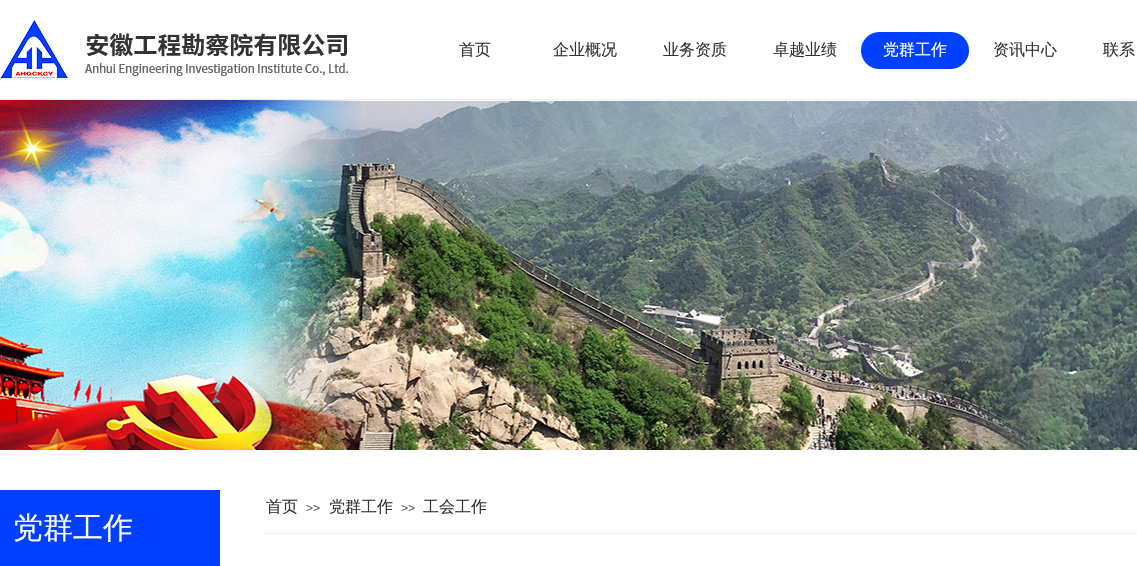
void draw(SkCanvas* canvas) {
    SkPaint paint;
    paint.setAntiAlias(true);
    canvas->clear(0xFFFFFFFF);
    canvas->drawImageRect(SkImages::DeferredFromEncodedData(SkData::MakeFromFileName("img1.png")), SkRect::MakeXYWH(0, 20, 348, 59), SkSamplingOptions());
    SkFont font1(fontMgr->matchFamilyStyle("WenQuanYi Zen Hei", SkFontStyle(500, SkFontStyle::kNormal_Width, SkFontStyle::kUpright_Slant)), 16);
    font1.setSubpixel(true);
    paint.setColor(0xFF333333);
    canvas->drawString("首页", 459, 55, font1, paint);
    canvas->drawString("企业概况", 553, 55, font1, paint);
    canvas->drawString("业务资质", 663, 55, font1, paint);
    canvas->drawString("卓越业绩", 773, 55, font1, paint);
    canvas->drawImageRect(SkImages::DeferredFromEncodedData(SkData::MakeFromFileName("img2.png")), SkRect::MakeXYWH(861, 32, 108, 37), SkSamplingOptions());
    paint.setColor(0xFFFFFFFF);
    canvas->drawString("党群工作", 883, 55, font1, paint);
    paint.setColor(0xFF333333);
    canvas->drawString("资讯中心", 993, 55, font1, paint);
    canvas->drawString("联系", 1103, 55, font1, paint);
    paint.setColor(0xFFEEEEEE);
    canvas->drawRect(SkRect::MakeXYWH(0, 99, 1137, 1), paint);
    canvas->drawImageRect(SkImages::DeferredFromEncodedData(SkData::MakeFromFileName("img3.png")), SkRect::MakeXYWH(0, 100, 1137, 350), SkSamplingOptions());
    paint.setColor(0xFF333333);
    canvas->drawString("首页", 266, 512, font1, paint);
    SkFont font2(fontMgr->matchFamilyStyle("Liberation Sans", SkFontStyle::Normal()), 12);
    font2.setSubpixel(true);
    paint.setColor(0xFF5A5A5A);
    canvas->drawString(">>", 306, 512, font2, paint);
    paint.setColor(0xFF333333);
    canvas->drawString("党群工作", 329, 512, font1, paint);
    paint.setColor(0xFF5A5A5A);
    canvas->drawString(">>", 401, 512, font2, paint);
    paint.setColor(0xFF333333);
    canvas->drawString("工会工作", 423, 512, font1, paint);
    paint.setColor(0xFF0140FF);
    canvas->drawRect(SkRect::MakeXYWH(0, 490, 220, 76), paint);
    SkFont font3(fontMgr->matchFamilyStyle("WenQuanYi Zen Hei", SkFontStyle(500, SkFontStyle::kNormal_Width, SkFontStyle::kUpright_Slant)), 30);
    font3.setSubpixel(true);
    paint.setColor(0xFFFFFFFF);
    canvas->drawString("党群工作", 13, 538, font3, paint);
    paint.setColor(0xFFEEEEEE);
    canvas->drawRect(SkRect::MakeXYWH(264, 533, 873, 1), paint);
}
